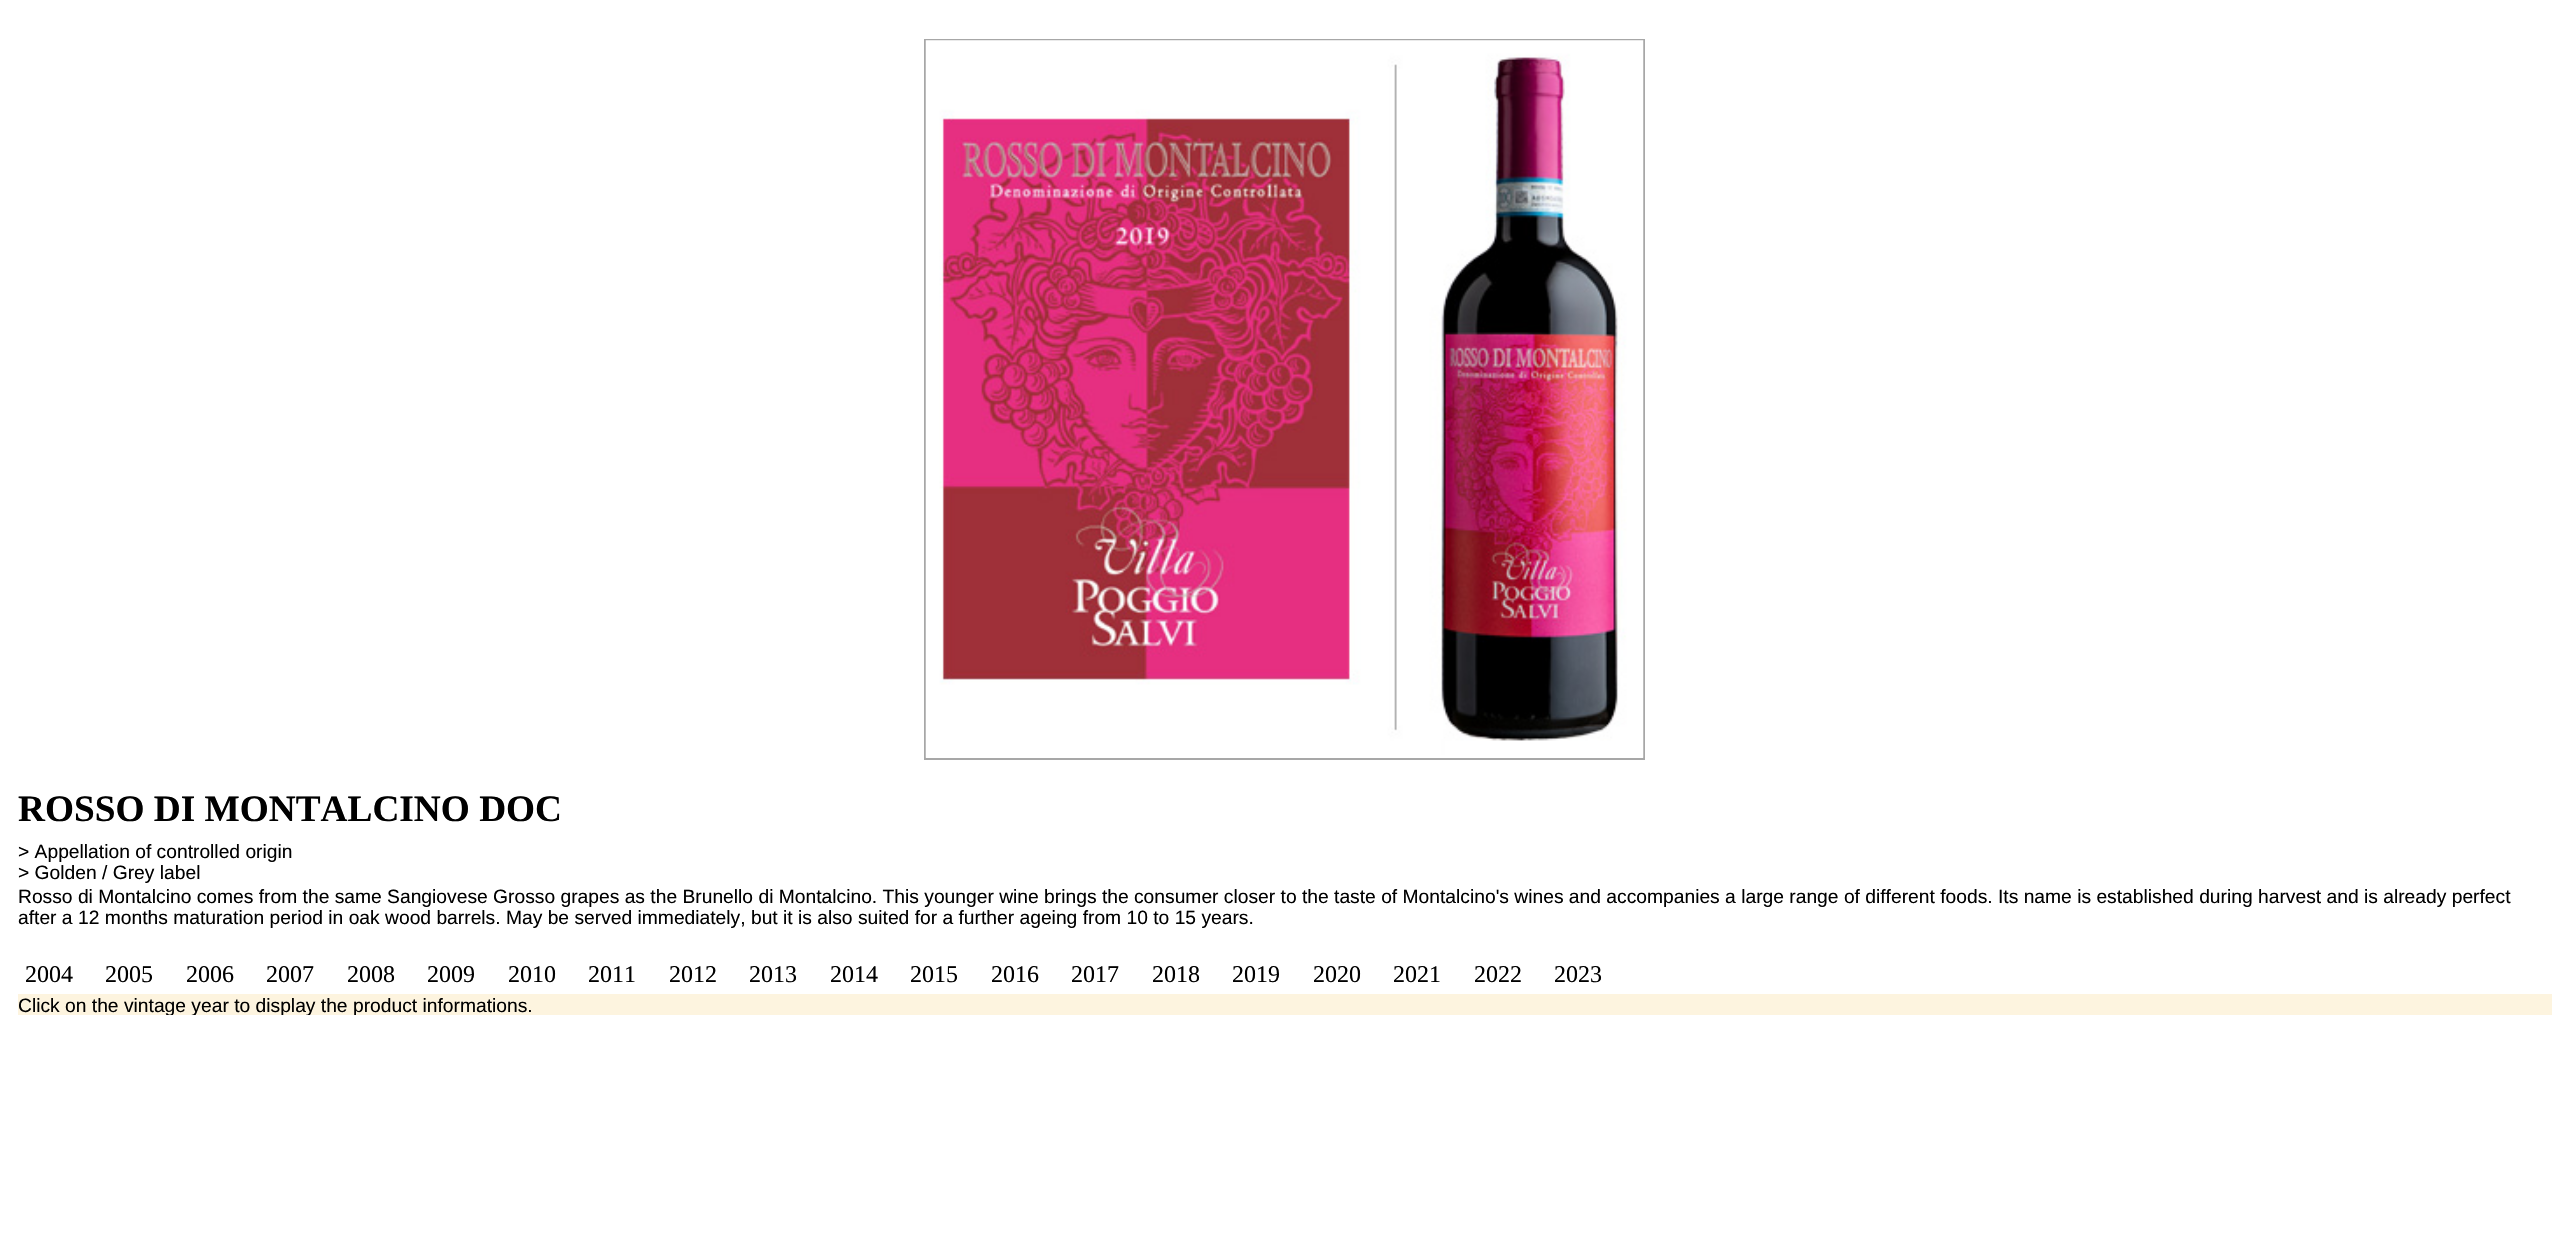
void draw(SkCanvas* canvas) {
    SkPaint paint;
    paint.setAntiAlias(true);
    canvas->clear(0xFFFFFFFF);
    paint.setStyle(SkPaint::kStroke_Style);
    paint.setStrokeWidth(2);
    paint.setColor(0xFFA7A7A7);
    canvas->drawRect(SkRect::MakeXYWH(925, 40, 719, 719), paint);
    canvas->drawImageRect(SkImages::DeferredFromEncodedData(SkData::MakeFromFileName("img1.png")), SkRect::MakeXYWH(925, 40, 719, 718), SkSamplingOptions());
    SkFont font1(fontMgr->matchFamilyStyle("Liberation Serif", SkFontStyle::Bold()), 37.3f);
    font1.setSubpixel(true);
    paint.setStyle(SkPaint::kFill_Style);
    paint.setColor(0xFF000000);
    canvas->drawString("ROSSO DI MONTALCINO DOC", 18, 821, font1, paint);
    SkFont font2(fontMgr->matchFamilyStyle("Liberation Sans", SkFontStyle::Normal()), 19.25f);
    font2.setSubpixel(true);
    canvas->drawString("> Appellation of controlled origin", 18, 858, font2, paint);
    canvas->drawString("> Golden / Grey label", 18, 879, font2, paint);
    canvas->drawString("Rosso di Montalcino comes from the same Sangiovese Grosso grapes as the Brunello di Montalcino. This younger wine brings the consumer closer to the taste of Montalcino's wines and accompanies a large range of different foods. Its name is established during harvest and is already perfect", 18, 903, font2, paint);
    canvas->drawString("after a 12 months maturation period in oak wood barrels. May be served immediately, but it is also suited for a further ageing from 10 to 15 years.", 18, 924, font2, paint);
    SkFont font3(fontMgr->matchFamilyStyle("Liberation Serif", SkFontStyle::Normal()), 24);
    font3.setSubpixel(true);
    canvas->drawString("2004", 25, 982, font3, paint);
    canvas->drawString("2005", 105, 982, font3, paint);
    canvas->drawString("2006", 186, 982, font3, paint);
    canvas->drawString("2007", 266, 982, font3, paint);
    canvas->drawString("2008", 347, 982, font3, paint);
    canvas->drawString("2009", 427, 982, font3, paint);
    canvas->drawString("2010", 508, 982, font3, paint);
    canvas->drawString("2011", 588, 982, font3, paint);
    canvas->drawString("2012", 669, 982, font3, paint);
    canvas->drawString("2013", 749, 982, font3, paint);
    canvas->drawString("2014", 830, 982, font3, paint);
    canvas->drawString("2015", 910, 982, font3, paint);
    canvas->drawString("2016", 991, 982, font3, paint);
    canvas->drawString("2017", 1071, 982, font3, paint);
    canvas->drawString("2018", 1152, 982, font3, paint);
    canvas->drawString("2019", 1232, 982, font3, paint);
    canvas->drawString("2020", 1313, 982, font3, paint);
    canvas->drawString("2021", 1393, 982, font3, paint);
    canvas->drawString("2022", 1474, 982, font3, paint);
    canvas->drawString("2023", 1554, 982, font3, paint);
    paint.setColor(0xFFFDF4DF);
    canvas->drawRect(SkRect::MakeXYWH(18, 994, 2534, 21), paint);
    canvas->save();
    canvas->clipRect(SkRect::MakeXYWH(18, 18, 2534, 997));
    paint.setColor(0xFF000000);
    canvas->drawString("Click on the vintage year to display the product informations.", 18, 1012, font2, paint);
    canvas->restore();
}
